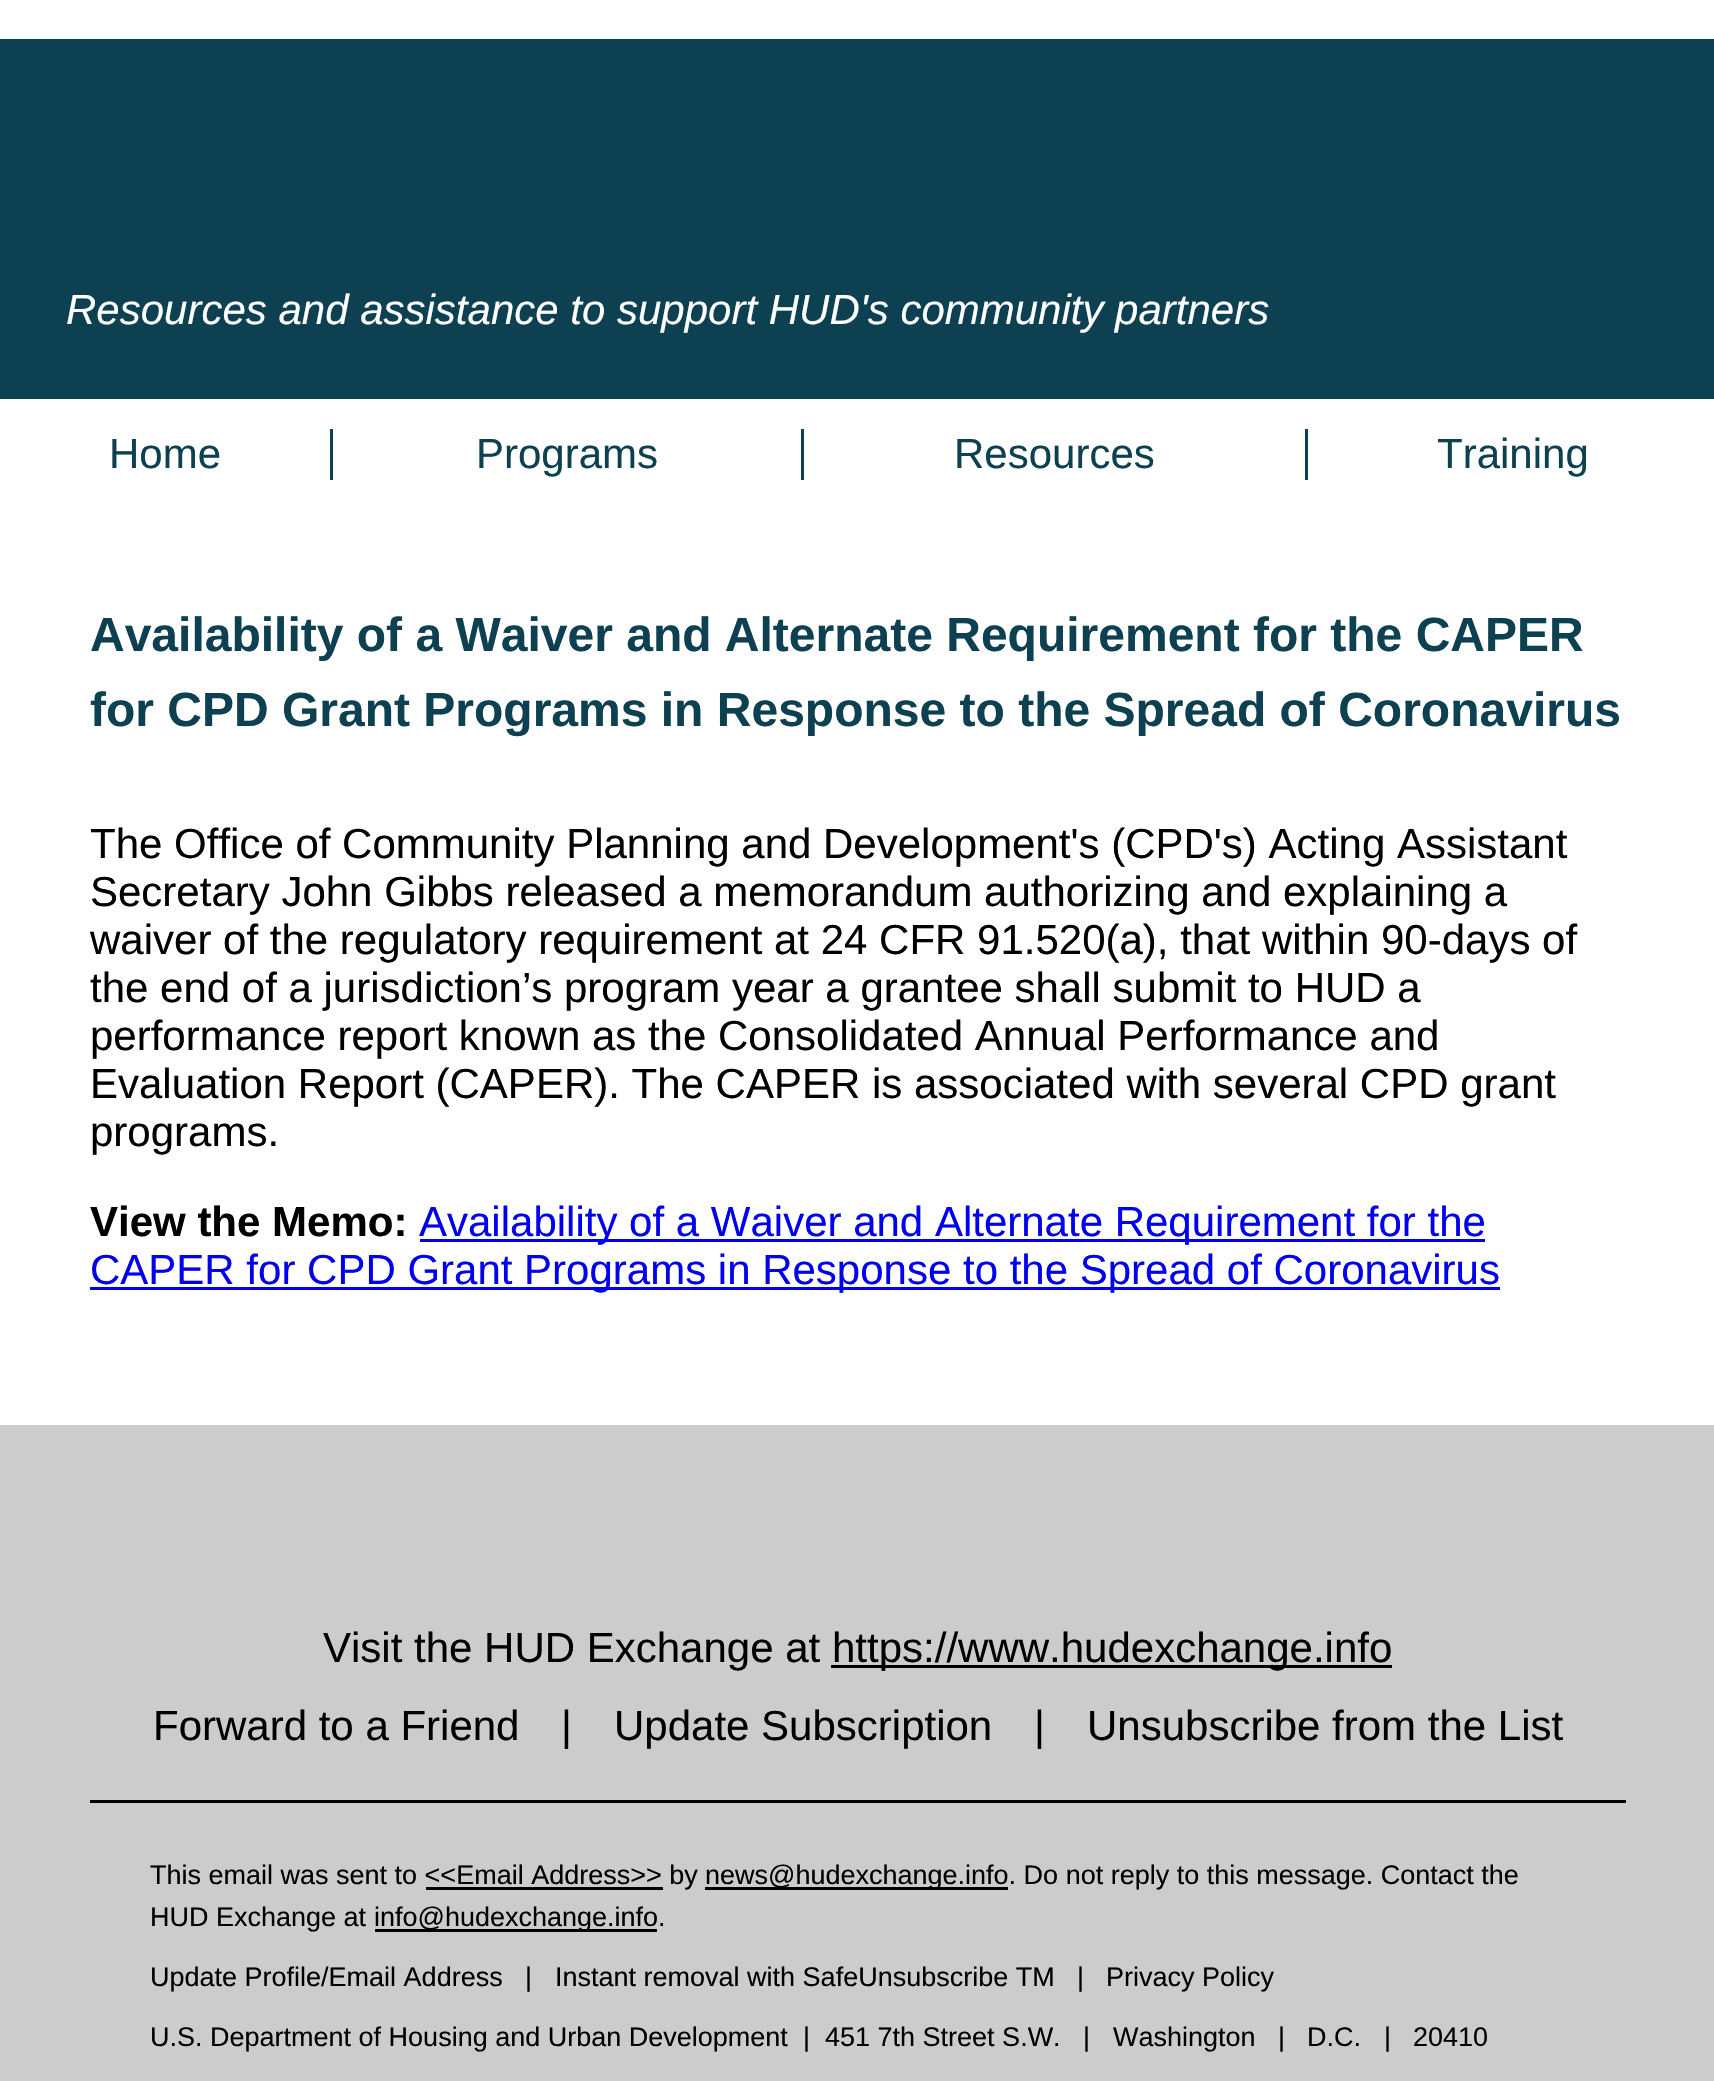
void draw(SkCanvas* canvas) {
    SkPaint paint;
    paint.setAntiAlias(true);
    canvas->clear(0xFFFFFFFF);
    paint.setColor(0xFF0D4050);
    canvas->drawRect(SkRect::MakeXYWH(0, 39, 1714, 360), paint);
    SkFont font1(fontMgr->matchFamilyStyle("Liberation Sans", SkFontStyle::Italic()), 42);
    font1.setSubpixel(true);
    paint.setColor(0xFFFFFFFF);
    canvas->drawString("Resources and assistance to support HUD's community partners", 66, 324, font1, paint);
    paint.setColor(0xFF0D4050);
    canvas->drawRect(SkRect::MakeXYWH(330, 429, 3, 51), paint);
    SkFont font2(fontMgr->matchFamilyStyle("Liberation Sans", SkFontStyle::Normal()), 42);
    font2.setSubpixel(true);
    canvas->drawString("Home", 109, 468, font2, paint);
    canvas->drawRect(SkRect::MakeXYWH(801, 429, 3, 51), paint);
    canvas->drawString("Programs", 476, 468, font2, paint);
    canvas->drawRect(SkRect::MakeXYWH(1305, 429, 3, 51), paint);
    canvas->drawString("Resources", 954, 468, font2, paint);
    canvas->drawString("Training", 1437, 468, font2, paint);
    SkFont font3(fontMgr->matchFamilyStyle("Liberation Sans", SkFontStyle::Bold()), 48);
    font3.setSubpixel(true);
    canvas->drawString("Availability of a Waiver and Alternate Requirement for the CAPER", 90, 651, font3, paint);
    canvas->drawString("for CPD Grant Programs in Response to the Spread of Coronavirus", 90, 726, font3, paint);
    paint.setColor(0xFF000000);
    canvas->drawString("The Office of Community Planning and Development's (CPD's) Acting Assistant", 90, 858, font2, paint);
    canvas->drawString("Secretary John Gibbs released a memorandum authorizing and explaining a", 90, 906, font2, paint);
    canvas->drawString("waiver of the regulatory requirement at 24 CFR 91.520(a), that within 90-days of", 90, 954, font2, paint);
    canvas->drawString("the end of a jurisdiction’s program year a grantee shall submit to HUD a", 90, 1002, font2, paint);
    canvas->drawString("performance report known as the Consolidated Annual Performance and", 90, 1050, font2, paint);
    canvas->drawString("Evaluation Report (CAPER). The CAPER is associated with several CPD grant", 90, 1098, font2, paint);
    canvas->drawString("programs.", 90, 1146, font2, paint);
    SkFont font4(fontMgr->matchFamilyStyle("Liberation Sans", SkFontStyle::Bold()), 42);
    font4.setSubpixel(true);
    canvas->drawString("View the Memo:", 90, 1236, font4, paint);
    paint.setColor(0xFF0000EE);
    canvas->drawRect(SkRect::MakeXYWH(420, 1239, 1065, 3), paint);
    canvas->drawString("Availability of a Waiver and Alternate Requirement for the", 419, 1236, font2, paint);
    canvas->drawRect(SkRect::MakeXYWH(90, 1287, 1410, 3), paint);
    canvas->drawString("CAPER for CPD Grant Programs in Response to the Spread of Coronavirus", 90, 1284, font2, paint);
    paint.setColor(0xFFCCCCCC);
    canvas->drawRect(SkRect::MakeXYWH(0, 1425, 1714, 656), paint);
    paint.setColor(0xFF000000);
    canvas->drawString("Visit the HUD Exchange at", 323, 1662, font2, paint);
    canvas->drawRect(SkRect::MakeXYWH(831, 1665, 561, 3), paint);
    canvas->drawString("https://www.hudexchange.info", 832, 1662, font2, paint);
    canvas->drawString("Forward to a Friend", 153, 1740, font2, paint);
    canvas->drawString("|", 561, 1740, font2, paint);
    canvas->drawString("Update Subscription", 614, 1740, font2, paint);
    canvas->drawString("|", 1034, 1740, font2, paint);
    canvas->drawString("Unsubscribe from the List", 1087, 1740, font2, paint);
    canvas->drawRect(SkRect::MakeXYWH(90, 1800, 1536, 3), paint);
    SkFont font5(fontMgr->matchFamilyStyle("Liberation Sans", SkFontStyle::Normal()), 27);
    font5.setSubpixel(true);
    canvas->drawString("This email was sent to <<Email Address>> by", 150, 1884, font5, paint);
    canvas->drawRect(SkRect::MakeXYWH(705, 1887, 303, 3), paint);
    canvas->drawString("news@hudexchange.info. Do not reply to this message. Contact the", 705, 1884, font5, paint);
    canvas->drawRect(SkRect::MakeXYWH(426, 1887, 237, 3), paint);
    canvas->drawString("HUD Exchange at", 150, 1926, font5, paint);
    canvas->drawRect(SkRect::MakeXYWH(375, 1929, 282, 3), paint);
    canvas->drawString("info@hudexchange.info.", 374, 1926, font5, paint);
    canvas->drawString("Update Profile/Email Address", 150, 1986, font5, paint);
    canvas->drawString("|", 525, 1986, font5, paint);
    canvas->drawString("Instant removal with SafeUnsubscribe TM", 555, 1986, font5, paint);
    canvas->drawString("|", 1077, 1986, font5, paint);
    canvas->drawString("Privacy Policy", 1106, 1986, font5, paint);
    canvas->drawString("U.S. Department of Housing and Urban Development", 150, 2046, font5, paint);
    canvas->drawString("|", 803, 2046, font5, paint);
    canvas->drawString("451 7th Street S.W.", 825, 2046, font5, paint);
    canvas->drawString("|", 1083, 2046, font5, paint);
    canvas->drawString("Washington", 1113, 2046, font5, paint);
    canvas->drawString("|", 1278, 2046, font5, paint);
    canvas->drawString("D.C.", 1307, 2046, font5, paint);
    canvas->drawString("|", 1384, 2046, font5, paint);
    canvas->drawString("20410", 1413, 2046, font5, paint);
}
